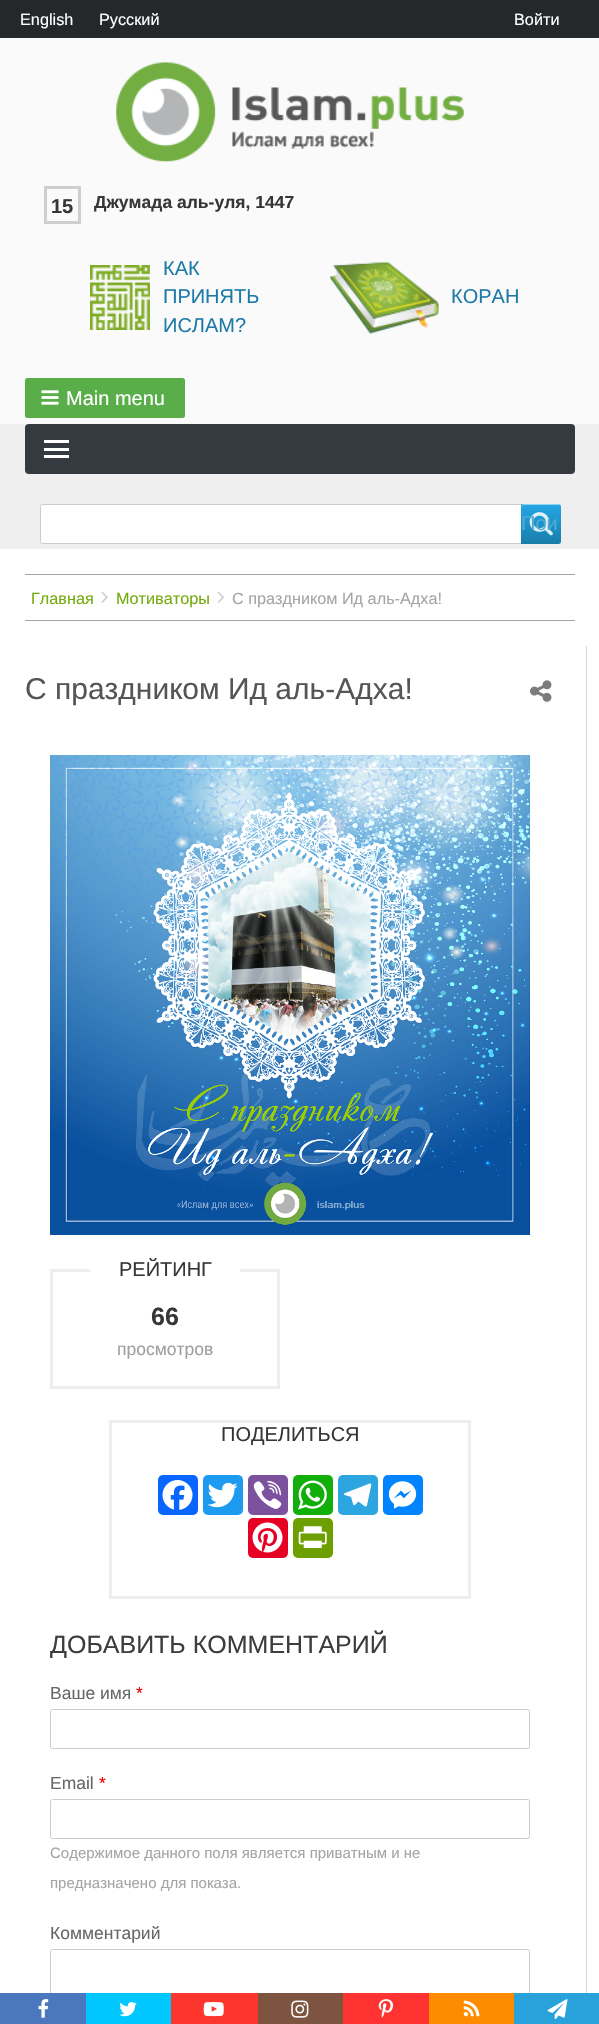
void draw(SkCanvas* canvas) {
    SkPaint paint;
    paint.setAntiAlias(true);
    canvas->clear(0xFFFFFFFF);
    paint.setColor(0xFF24282B);
    canvas->drawRect(SkRect::MakeXYWH(0, 0, 599, 38), paint);
    SkFont font1(fontMgr->matchFamilyStyle("Liberation Sans", SkFontStyle::Normal()), 16.25f);
    font1.setSubpixel(true);
    paint.setColor(0xFFFFFFFF);
    canvas->drawString("English", 20, 25, font1, paint);
    canvas->drawString("Русский", 99, 25, font1, paint);
    canvas->drawString("Войти", 514, 25, font1, paint);
    paint.setColor(0xFFFAFAFA);
    canvas->drawRect(SkRect::MakeXYWH(0, 38, 599, 386), paint);
    canvas->drawImageRect(SkImages::DeferredFromEncodedData(SkData::MakeFromFileName("img1.png")), SkRect::MakeXYWH(116, 62, 348, 100), SkSamplingOptions());
    paint.setStyle(SkPaint::kStroke_Style);
    paint.setStrokeWidth(3);
    paint.setColor(0xFFCECECE);
    canvas->drawRect(SkRect::MakeXYWH(45.5f, 187.5f, 34, 35), paint);
    SkFont font2(fontMgr->matchFamilyStyle("Liberation Sans", SkFontStyle::Bold()), 20);
    font2.setSubpixel(true);
    paint.setStyle(SkPaint::kFill_Style);
    paint.setColor(0xFF363636);
    canvas->drawString("15", 51, 213, font2, paint);
    SkFont font3(fontMgr->matchFamilyStyle("Liberation Sans", SkFontStyle::Bold()), 17.5f);
    font3.setSubpixel(true);
    canvas->drawString("Джумада аль-уля, 1447", 94, 208, font3, paint);
    canvas->drawImageRect(SkImages::DeferredFromEncodedData(SkData::MakeFromFileName("img2.png")), SkRect::MakeXYWH(90, 265, 60, 65), SkSamplingOptions());
    SkFont font4(fontMgr->matchFamilyStyle("Liberation Sans", SkFontStyle::Normal()), 20);
    font4.setSubpixel(true);
    paint.setColor(0xFF1E7AA8);
    canvas->drawString("КАК", 163, 275, font4, paint);
    canvas->drawString("ПРИНЯТЬ", 163, 303, font4, paint);
    canvas->drawString("ИСЛАМ?", 163, 332, font4, paint);
    canvas->drawImageRect(SkImages::DeferredFromEncodedData(SkData::MakeFromFileName("img3.png")), SkRect::MakeXYWH(330, 262, 109, 72), SkSamplingOptions());
    canvas->drawString("КОРАН", 451, 303, font4, paint);
    paint.setColor(0xFF5AAE49);
    canvas->drawRoundRect(SkRect::MakeXYWH(25, 378, 160, 40), 2.5f, 2.5f, paint);
    canvas->drawImageRect(SkImages::DeferredFromEncodedData(SkData::MakeFromFileName("img4.png")), SkRect::MakeXYWH(41, 390, 18, 15), SkSamplingOptions());
    paint.setColor(0xFFFFFFFF);
    canvas->drawString("Main menu", 66, 405, font4, paint);
    paint.setColor(0xFFEFEFEF);
    canvas->drawRect(SkRect::MakeXYWH(0, 424, 599, 125), paint);
    paint.setColor(0xFF343A40);
    canvas->drawRoundRect(SkRect::MakeXYWH(25, 424, 550, 50), 4, 4, paint);
    paint.setColor(0xFFFFFFFF);
    canvas->drawRect(SkRect::MakeXYWH(44, 440, 25, 3), paint);
    canvas->drawRect(SkRect::MakeXYWH(44, 448, 25, 3), paint);
    canvas->drawRect(SkRect::MakeXYWH(44, 455, 25, 3), paint);
    canvas->drawRoundRect(SkRect::MakeXYWH(40.5f, 504.5f, 519, 39), 2, 2, paint);
    paint.setStyle(SkPaint::kStroke_Style);
    paint.setStrokeWidth(1);
    paint.setColor(0xFFCCCCCC);
    canvas->drawRoundRect(SkRect::MakeXYWH(40.5f, 504.5f, 519, 39), 2, 2, paint);
    paint.setStyle(SkPaint::kFill_Style);
    {
        const SkColor colors[] = {0xFF24A7E6, 0xFF187DAB};
        const float stops[] = {0, 1};
        const SkPoint ends[] = {{541, 504}, {541, 544}};
        paint.setShader(SkGradientShader::MakeLinear(ends, colors, stops, 2, SkTileMode::kClamp));
        paint.setAlpha(255);
    }
    canvas->drawPath(SkPathBuilder().moveTo(521, 504).lineTo(558.5f, 504).cubicTo(560, 504, 561, 505, 561, 506.5f).lineTo(561, 541.5f).cubicTo(561, 543, 560, 544, 558.5f, 544).lineTo(521, 544).close().detach(), paint);
    canvas->drawImageRect(SkImages::DeferredFromEncodedData(SkData::MakeFromFileName("img5.png")), SkRect::MakeXYWH(529, 512, 24, 24), SkSamplingOptions());
    paint.setShader(nullptr);
    paint.setColor(0x80FFFFFF);
    canvas->drawPath(SkPathBuilder().moveTo(524, 505).lineTo(559, 505).cubicTo(560, 505, 561, 506, 561, 508).cubicTo(561, 503, 558, 504, 553, 504).lineTo(529, 504).cubicTo(524, 504, 521, 503, 521, 508).cubicTo(521, 506, 522, 505, 524, 505).close().detach(), paint);
    paint.setColor(0xFF4FAAD5);
    canvas->drawString("Пои", 521, 530, font4, paint);
    paint.setColor(0xFFA5A5A5);
    canvas->drawRect(SkRect::MakeXYWH(25, 574, 550, 1), paint);
    canvas->drawRect(SkRect::MakeXYWH(25, 620, 550, 1), paint);
    paint.setColor(0xFF72AB0B);
    canvas->drawString("Главная", 31, 604, font1, paint);
    canvas->drawImageRect(SkImages::DeferredFromEncodedData(SkData::MakeFromFileName("img6.png")), SkRect::MakeXYWH(101, 591, 7, 12), SkSamplingOptions());
    canvas->drawString("Мотиваторы", 116, 604, font1, paint);
    canvas->drawImageRect(SkImages::DeferredFromEncodedData(SkData::MakeFromFileName("img7.png")), SkRect::MakeXYWH(217, 591, 7, 12), SkSamplingOptions());
    paint.setColor(0xFFA5A5A5);
    canvas->drawString("С праздником Ид аль-Адха!", 232, 604, font1, paint);
    paint.setColor(0xFFD8D8D8);
    canvas->drawRect(SkRect::MakeXYWH(586, 646, 1, 1347), paint);
    SkFont font5(fontMgr->matchFamilyStyle("Liberation Sans", SkFontStyle::Normal()), 30);
    font5.setSubpixel(true);
    paint.setColor(0xFF555555);
    canvas->drawString("С праздником Ид аль-Адха!", 25, 699, font5, paint);
    canvas->drawImageRect(SkImages::DeferredFromEncodedData(SkData::MakeFromFileName("img8.png")), SkRect::MakeXYWH(530, 680, 22, 22), SkSamplingOptions());
    canvas->drawImageRect(SkImages::DeferredFromEncodedData(SkData::MakeFromFileName("img9.png")), SkRect::MakeXYWH(50, 755, 480, 480), SkSamplingOptions());
    paint.setStyle(SkPaint::kStroke_Style);
    paint.setStrokeWidth(3);
    paint.setColor(0xFFEEEEEE);
    canvas->drawRect(SkRect::MakeXYWH(51.5f, 1270.5f, 227, 117), paint);
    paint.setStyle(SkPaint::kFill_Style);
    paint.setColor(0xFFFFFFFF);
    canvas->drawRect(SkRect::MakeXYWH(90, 1269, 150, 3), paint);
    paint.setColor(0xFF363636);
    canvas->drawString("РЕЙТИНГ", 119, 1276, font4, paint);
    SkFont font6(fontMgr->matchFamilyStyle("Liberation Sans", SkFontStyle::Bold()), 25);
    font6.setSubpixel(true);
    canvas->drawString("66", 151, 1325, font6, paint);
    SkFont font7(fontMgr->matchFamilyStyle("Liberation Sans", SkFontStyle::Normal()), 17.5f);
    font7.setSubpixel(true);
    paint.setColor(0xFF9E9E9E);
    canvas->drawString("просмотров", 117, 1355, font7, paint);
    paint.setStyle(SkPaint::kStroke_Style);
    paint.setColor(0xFFEEEEEE);
    canvas->drawRect(SkRect::MakeXYWH(110.5f, 1421.5f, 359, 176), paint);
    paint.setStyle(SkPaint::kFill_Style);
    paint.setColor(0xFF363636);
    canvas->drawString("ПОДЕЛИТЬСЯ", 221, 1441, font4, paint);
    paint.setColor(0xFF0866FF);
    canvas->drawRoundRect(SkRect::MakeXYWH(158, 1475, 40, 40), 5, 5, paint);
    canvas->drawImageRect(SkImages::DeferredFromEncodedData(SkData::MakeFromFileName("img10.png")), SkRect::MakeXYWH(162, 1480, 31, 30), SkSamplingOptions());
    paint.setColor(0xFF1D9BF0);
    canvas->drawRoundRect(SkRect::MakeXYWH(203, 1475, 40, 40), 5, 5, paint);
    canvas->drawImageRect(SkImages::DeferredFromEncodedData(SkData::MakeFromFileName("img11.png")), SkRect::MakeXYWH(207, 1482, 31, 26), SkSamplingOptions());
    paint.setColor(0xFF7C529E);
    canvas->drawRoundRect(SkRect::MakeXYWH(248, 1475, 40, 40), 5, 5, paint);
    canvas->drawImageRect(SkImages::DeferredFromEncodedData(SkData::MakeFromFileName("img12.png")), SkRect::MakeXYWH(253, 1481, 29, 28), SkSamplingOptions());
    paint.setColor(0xFF12AF0A);
    canvas->drawRoundRect(SkRect::MakeXYWH(293, 1475, 40, 40), 5, 5, paint);
    canvas->drawImageRect(SkImages::DeferredFromEncodedData(SkData::MakeFromFileName("img13.png")), SkRect::MakeXYWH(298, 1480, 29, 30), SkSamplingOptions());
    paint.setColor(0xFF2CA5E0);
    canvas->drawRoundRect(SkRect::MakeXYWH(338, 1475, 40, 40), 5, 5, paint);
    canvas->drawImageRect(SkImages::DeferredFromEncodedData(SkData::MakeFromFileName("img14.png")), SkRect::MakeXYWH(343, 1483, 29, 24), SkSamplingOptions());
    paint.setColor(0xFF0084FF);
    canvas->drawRoundRect(SkRect::MakeXYWH(383, 1475, 40, 40), 5, 5, paint);
    canvas->drawImageRect(SkImages::DeferredFromEncodedData(SkData::MakeFromFileName("img15.png")), SkRect::MakeXYWH(388, 1481, 29, 28), SkSamplingOptions());
    paint.setColor(0xFFE60023);
    canvas->drawRoundRect(SkRect::MakeXYWH(248, 1518, 40, 40), 5, 5, paint);
    canvas->drawImageRect(SkImages::DeferredFromEncodedData(SkData::MakeFromFileName("img16.png")), SkRect::MakeXYWH(252, 1522, 31, 31), SkSamplingOptions());
    paint.setColor(0xFF6D9F00);
    canvas->drawRoundRect(SkRect::MakeXYWH(293, 1518, 40, 40), 5, 5, paint);
    canvas->drawImageRect(SkImages::DeferredFromEncodedData(SkData::MakeFromFileName("img17.png")), SkRect::MakeXYWH(298, 1526, 29, 22), SkSamplingOptions());
    SkFont font8(fontMgr->matchFamilyStyle("Liberation Sans", SkFontStyle::Normal()), 25);
    font8.setSubpixel(true);
    paint.setColor(0xFF3D3D3D);
    canvas->drawString("ДОБАВИТЬ КОММЕНТАРИЙ", 50, 1653, font8, paint);
    paint.setColor(0xFF676767);
    canvas->drawString("Ваше имя", 50, 1699, font7, paint);
    paint.setColor(0xFFEE0000);
    canvas->drawString("*", 136, 1699, font7, paint);
    paint.setStyle(SkPaint::kStroke_Style);
    paint.setStrokeWidth(1);
    paint.setColor(0xFFCCCCCC);
    canvas->drawRoundRect(SkRect::MakeXYWH(50.5f, 1709.5f, 479, 39), 2, 2, paint);
    paint.setStyle(SkPaint::kFill_Style);
    paint.setColor(0xFF676767);
    canvas->drawString("Email", 50, 1789, font7, paint);
    paint.setColor(0xFFEE0000);
    canvas->drawString("*", 99, 1789, font7, paint);
    paint.setStyle(SkPaint::kStroke_Style);
    paint.setColor(0xFFCCCCCC);
    canvas->drawRoundRect(SkRect::MakeXYWH(50.5f, 1799.5f, 479, 39), 2, 2, paint);
    SkFont font9(fontMgr->matchFamilyStyle("Liberation Sans", SkFontStyle::Normal()), 15);
    font9.setSubpixel(true);
    paint.setStyle(SkPaint::kFill_Style);
    paint.setColor(0xFFA5A5A5);
    canvas->drawString("Содержимое данного поля является приватным и не", 50, 1858, font9, paint);
    canvas->drawString("предназначено для показа.", 50, 1888, font9, paint);
    paint.setColor(0xFF676767);
    canvas->drawString("Комментарий", 50, 1939, font7, paint);
    paint.setStyle(SkPaint::kStroke_Style);
    paint.setColor(0xFFCCCCCC);
    canvas->drawRoundRect(SkRect::MakeXYWH(50.5f, 1949.5f, 479, 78), 2, 2, paint);
    paint.setStyle(SkPaint::kFill_Style);
    paint.setColor(0xFF4A77BE);
    canvas->drawRect(SkRect::MakeXYWH(0, 1993, 86, 31), paint);
    canvas->drawImageRect(SkImages::DeferredFromEncodedData(SkData::MakeFromFileName("img18.png")), SkRect::MakeXYWH(38, 1999, 11, 19), SkSamplingOptions());
    paint.setColor(0xFF00C7FF);
    canvas->drawRect(SkRect::MakeXYWH(86, 1993, 85, 31), paint);
    canvas->drawImageRect(SkImages::DeferredFromEncodedData(SkData::MakeFromFileName("img19.png")), SkRect::MakeXYWH(119, 2002, 18, 15), SkSamplingOptions());
    paint.setColor(0xFFFC352D);
    canvas->drawRect(SkRect::MakeXYWH(171, 1993, 87, 31), paint);
    canvas->drawImageRect(SkImages::DeferredFromEncodedData(SkData::MakeFromFileName("img20.png")), SkRect::MakeXYWH(203, 2002, 21, 15), SkSamplingOptions());
    paint.setColor(0xFF7C543F);
    canvas->drawRect(SkRect::MakeXYWH(258, 1993, 85, 31), paint);
    canvas->drawImageRect(SkImages::DeferredFromEncodedData(SkData::MakeFromFileName("img21.png")), SkRect::MakeXYWH(291, 2000, 18, 18), SkSamplingOptions());
    paint.setColor(0xFFFF3332);
    canvas->drawRect(SkRect::MakeXYWH(343, 1993, 86, 31), paint);
    canvas->drawImageRect(SkImages::DeferredFromEncodedData(SkData::MakeFromFileName("img22.png")), SkRect::MakeXYWH(378, 1999, 15, 19), SkSamplingOptions());
    paint.setColor(0xFFFF8B00);
    canvas->drawRect(SkRect::MakeXYWH(429, 1993, 85, 31), paint);
    canvas->drawImageRect(SkImages::DeferredFromEncodedData(SkData::MakeFromFileName("img23.png")), SkRect::MakeXYWH(463, 2000, 17, 17), SkSamplingOptions());
    paint.setColor(0xFF29A2DB);
    canvas->drawRect(SkRect::MakeXYWH(514, 1993, 85, 31), paint);
    canvas->drawImageRect(SkImages::DeferredFromEncodedData(SkData::MakeFromFileName("img24.png")), SkRect::MakeXYWH(547, 1999, 21, 21), SkSamplingOptions());
}
